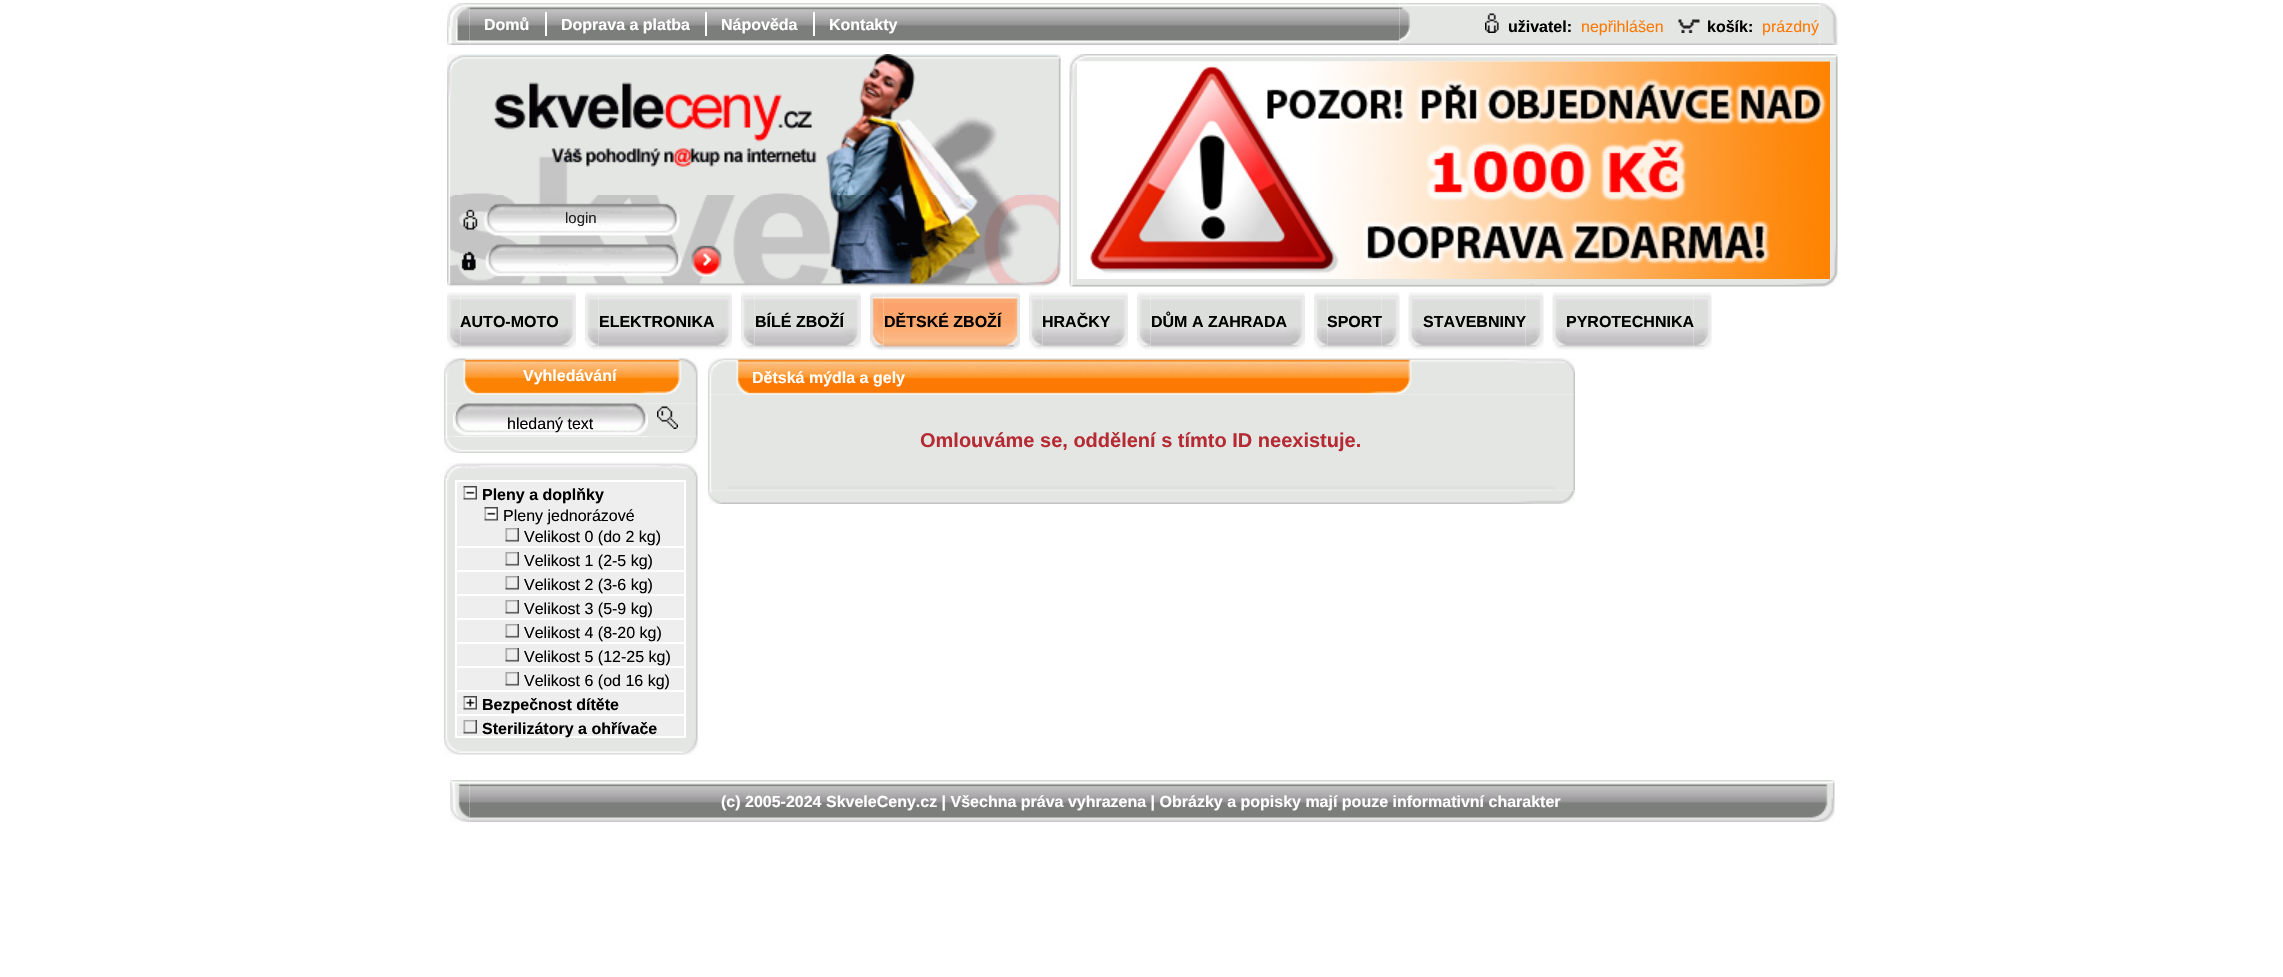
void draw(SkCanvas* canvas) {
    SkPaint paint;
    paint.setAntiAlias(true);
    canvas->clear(0xFFFFFFFF);
    canvas->drawImageRect(SkImages::DeferredFromEncodedData(SkData::MakeFromFileName("img1.png")), SkRect::MakeXYWH(447, 3, 23, 42), SkSamplingOptions());
    canvas->drawImageRect(SkImages::DeferredFromEncodedData(SkData::MakeFromFileName("img2.png")), SkRect::MakeXYWH(469, 3, 931, 42), SkSamplingOptions());
    SkFont font1(fontMgr->matchFamilyStyle("Liberation Sans", SkFontStyle::Bold()), 16);
    font1.setSubpixel(true);
    paint.setColor(0xFFFFFFFF);
    canvas->drawString("Domů", 484, 30, font1, paint);
    canvas->drawRect(SkRect::MakeXYWH(545, 12, 2, 24), paint);
    canvas->drawString("Doprava a platba", 561, 30, font1, paint);
    canvas->drawRect(SkRect::MakeXYWH(705, 12, 2, 24), paint);
    canvas->drawString("Nápověda", 721, 30, font1, paint);
    canvas->drawRect(SkRect::MakeXYWH(813, 12, 2, 24), paint);
    canvas->drawString("Kontakty", 829, 30, font1, paint);
    canvas->drawImageRect(SkImages::DeferredFromEncodedData(SkData::MakeFromFileName("img3.png")), SkRect::MakeXYWH(1399, 3, 11, 42), SkSamplingOptions());
    canvas->drawImageRect(SkImages::DeferredFromEncodedData(SkData::MakeFromFileName("img4.png")), SkRect::MakeXYWH(1410, 3, 410, 42), SkSamplingOptions());
    canvas->drawImageRect(SkImages::DeferredFromEncodedData(SkData::MakeFromFileName("img5.png")), SkRect::MakeXYWH(1485, 13, 14, 20), SkSamplingOptions());
    paint.setColor(0xFF000000);
    canvas->drawString("uživatel:", 1508, 32, font1, paint);
    SkFont font2(fontMgr->matchFamilyStyle("Liberation Sans", SkFontStyle::Normal()), 16);
    font2.setSubpixel(true);
    paint.setColor(0xFFFF7800);
    canvas->drawString("nepřihlášen", 1581, 32, font2, paint);
    canvas->drawImageRect(SkImages::DeferredFromEncodedData(SkData::MakeFromFileName("img6.png")), SkRect::MakeXYWH(1678, 19, 22, 14), SkSamplingOptions());
    paint.setColor(0xFF000000);
    canvas->drawString("košík:", 1707, 32, font1, paint);
    paint.setColor(0xFFFF7800);
    canvas->drawString("prázdný", 1762, 32, font2, paint);
    canvas->drawImageRect(SkImages::DeferredFromEncodedData(SkData::MakeFromFileName("img7.png")), SkRect::MakeXYWH(1819, 3, 19, 42), SkSamplingOptions());
    canvas->drawImageRect(SkImages::DeferredFromEncodedData(SkData::MakeFromFileName("img8.png")), SkRect::MakeXYWH(447, 54, 614, 141), SkSamplingOptions());
    canvas->drawImageRect(SkImages::DeferredFromEncodedData(SkData::MakeFromFileName("img9.png")), SkRect::MakeXYWH(1071, 54, 767, 8), SkSamplingOptions());
    canvas->drawImageRect(SkImages::DeferredFromEncodedData(SkData::MakeFromFileName("img10.png")), SkRect::MakeXYWH(1069, 61, 8, 218), SkSamplingOptions());
    canvas->drawImageRect(SkImages::DeferredFromEncodedData(SkData::MakeFromFileName("img11.png")), SkRect::MakeXYWH(1079, 61, 751, 218), SkSamplingOptions());
    canvas->drawImageRect(SkImages::DeferredFromEncodedData(SkData::MakeFromFileName("img12.png")), SkRect::MakeXYWH(1830, 61, 8, 218), SkSamplingOptions());
    canvas->drawImageRect(SkImages::DeferredFromEncodedData(SkData::MakeFromFileName("img13.png")), SkRect::MakeXYWH(1069, 279, 767, 8), SkSamplingOptions());
    canvas->drawImageRect(SkImages::DeferredFromEncodedData(SkData::MakeFromFileName("img14.png")), SkRect::MakeXYWH(447, 195, 614, 92), SkSamplingOptions());
    SkFont font3(fontMgr->matchFamilyStyle("Liberation Sans", SkFontStyle::Normal()), 15);
    font3.setSubpixel(true);
    paint.setColor(0xFF222222);
    canvas->drawString("login", 565, 223, font3, paint);
    canvas->drawImageRect(SkImages::DeferredFromEncodedData(SkData::MakeFromFileName("img15.png")), SkRect::MakeXYWH(447, 292, 14, 58), SkSamplingOptions());
    canvas->drawImageRect(SkImages::DeferredFromEncodedData(SkData::MakeFromFileName("img16.png")), SkRect::MakeXYWH(460, 292, 98, 58), SkSamplingOptions());
    paint.setColor(0xFF000000);
    canvas->drawString("AUTO-MOTO", 460, 327, font1, paint);
    canvas->drawImageRect(SkImages::DeferredFromEncodedData(SkData::MakeFromFileName("img17.png")), SkRect::MakeXYWH(558, 292, 18, 58), SkSamplingOptions());
    canvas->drawImageRect(SkImages::DeferredFromEncodedData(SkData::MakeFromFileName("img15.png")), SkRect::MakeXYWH(585, 292, 14, 58), SkSamplingOptions());
    canvas->drawImageRect(SkImages::DeferredFromEncodedData(SkData::MakeFromFileName("img18.png")), SkRect::MakeXYWH(598, 292, 116, 58), SkSamplingOptions());
    canvas->drawString("ELEKTRONIKA", 599, 327, font1, paint);
    canvas->drawImageRect(SkImages::DeferredFromEncodedData(SkData::MakeFromFileName("img17.png")), SkRect::MakeXYWH(714, 292, 18, 58), SkSamplingOptions());
    canvas->drawImageRect(SkImages::DeferredFromEncodedData(SkData::MakeFromFileName("img15.png")), SkRect::MakeXYWH(741, 292, 14, 58), SkSamplingOptions());
    canvas->drawImageRect(SkImages::DeferredFromEncodedData(SkData::MakeFromFileName("img19.png")), SkRect::MakeXYWH(754, 292, 89, 58), SkSamplingOptions());
    canvas->drawImageRect(SkImages::DeferredFromEncodedData(SkData::MakeFromFileName("img20.png")), SkRect::MakeXYWH(843, 292, 18, 58), SkSamplingOptions());
    canvas->drawString("BÍLÉ ZBOŽÍ", 755, 327, font1, paint);
    canvas->drawImageRect(SkImages::DeferredFromEncodedData(SkData::MakeFromFileName("img21.png")), SkRect::MakeXYWH(870, 292, 14, 58), SkSamplingOptions());
    canvas->drawImageRect(SkImages::DeferredFromEncodedData(SkData::MakeFromFileName("img22.png")), SkRect::MakeXYWH(883, 292, 119, 58), SkSamplingOptions());
    canvas->drawString("DĚTSKÉ ZBOŽÍ", 884, 327, font1, paint);
    canvas->drawImageRect(SkImages::DeferredFromEncodedData(SkData::MakeFromFileName("img23.png")), SkRect::MakeXYWH(1002, 292, 18, 58), SkSamplingOptions());
    canvas->drawImageRect(SkImages::DeferredFromEncodedData(SkData::MakeFromFileName("img15.png")), SkRect::MakeXYWH(1029, 292, 14, 58), SkSamplingOptions());
    canvas->drawImageRect(SkImages::DeferredFromEncodedData(SkData::MakeFromFileName("img24.png")), SkRect::MakeXYWH(1042, 292, 68, 58), SkSamplingOptions());
    canvas->drawString("HRAČKY", 1042, 327, font1, paint);
    canvas->drawImageRect(SkImages::DeferredFromEncodedData(SkData::MakeFromFileName("img17.png")), SkRect::MakeXYWH(1110, 292, 18, 58), SkSamplingOptions());
    canvas->drawImageRect(SkImages::DeferredFromEncodedData(SkData::MakeFromFileName("img15.png")), SkRect::MakeXYWH(1137, 292, 14, 58), SkSamplingOptions());
    canvas->drawImageRect(SkImages::DeferredFromEncodedData(SkData::MakeFromFileName("img25.png")), SkRect::MakeXYWH(1150, 292, 137, 58), SkSamplingOptions());
    canvas->drawString("DŮM A ZAHRADA", 1151, 327, font1, paint);
    canvas->drawImageRect(SkImages::DeferredFromEncodedData(SkData::MakeFromFileName("img26.png")), SkRect::MakeXYWH(1287, 292, 18, 58), SkSamplingOptions());
    canvas->drawImageRect(SkImages::DeferredFromEncodedData(SkData::MakeFromFileName("img27.png")), SkRect::MakeXYWH(1314, 292, 14, 58), SkSamplingOptions());
    canvas->drawImageRect(SkImages::DeferredFromEncodedData(SkData::MakeFromFileName("img28.png")), SkRect::MakeXYWH(1327, 292, 55, 58), SkSamplingOptions());
    canvas->drawImageRect(SkImages::DeferredFromEncodedData(SkData::MakeFromFileName("img29.png")), SkRect::MakeXYWH(1381, 292, 19, 58), SkSamplingOptions());
    canvas->drawString("SPORT", 1327, 327, font1, paint);
    canvas->drawImageRect(SkImages::DeferredFromEncodedData(SkData::MakeFromFileName("img30.png")), SkRect::MakeXYWH(1408, 292, 14, 58), SkSamplingOptions());
    canvas->drawImageRect(SkImages::DeferredFromEncodedData(SkData::MakeFromFileName("img31.png")), SkRect::MakeXYWH(1422, 292, 104, 58), SkSamplingOptions());
    canvas->drawImageRect(SkImages::DeferredFromEncodedData(SkData::MakeFromFileName("img32.png")), SkRect::MakeXYWH(1525, 292, 19, 58), SkSamplingOptions());
    canvas->drawString("STAVEBNINY", 1423, 327, font1, paint);
    canvas->drawImageRect(SkImages::DeferredFromEncodedData(SkData::MakeFromFileName("img33.png")), SkRect::MakeXYWH(1552, 292, 14, 58), SkSamplingOptions());
    canvas->drawImageRect(SkImages::DeferredFromEncodedData(SkData::MakeFromFileName("img34.png")), SkRect::MakeXYWH(1566, 292, 128, 58), SkSamplingOptions());
    canvas->drawImageRect(SkImages::DeferredFromEncodedData(SkData::MakeFromFileName("img32.png")), SkRect::MakeXYWH(1693, 292, 19, 58), SkSamplingOptions());
    canvas->drawString("PYROTECHNIKA", 1566, 327, font1, paint);
    canvas->drawImageRect(SkImages::DeferredFromEncodedData(SkData::MakeFromFileName("img35.png")), SkRect::MakeXYWH(444, 358, 254, 46), SkSamplingOptions());
    paint.setColor(0xFFFFFFFF);
    canvas->drawString("Vyhledávání", 523, 381, font1, paint);
    canvas->drawImageRect(SkImages::DeferredFromEncodedData(SkData::MakeFromFileName("img36.png")), SkRect::MakeXYWH(444, 403, 254, 34), SkSamplingOptions());
    canvas->drawImageRect(SkImages::DeferredFromEncodedData(SkData::MakeFromFileName("img39.png")), SkRect::MakeXYWH(444, 436, 254, 17), SkSamplingOptions());
    canvas->drawRect(SkRect::MakeXYWH(453, 436, 195, 1), paint);
    canvas->drawImageRect(SkImages::DeferredFromEncodedData(SkData::MakeFromFileName("img37.png")), SkRect::MakeXYWH(453, 403, 195, 34), SkSamplingOptions());
    paint.setColor(0xFF000000);
    canvas->drawString("hledaný text", 507, 429, font2, paint);
    canvas->drawImageRect(SkImages::DeferredFromEncodedData(SkData::MakeFromFileName("img38.png")), SkRect::MakeXYWH(657, 406, 21, 23), SkSamplingOptions());
    canvas->drawImageRect(SkImages::DeferredFromEncodedData(SkData::MakeFromFileName("img40.png")), SkRect::MakeXYWH(444, 463, 254, 17), SkSamplingOptions());
    canvas->drawImageRect(SkImages::DeferredFromEncodedData(SkData::MakeFromFileName("img41.png")), SkRect::MakeXYWH(444, 480, 254, 258), SkSamplingOptions());
    paint.setColor(0xFFEEEEEE);
    canvas->drawRect(SkRect::MakeXYWH(456, 481, 229, 256), paint);
    paint.setStyle(SkPaint::kStroke_Style);
    paint.setStrokeWidth(2);
    paint.setColor(0xFFFFFFFF);
    canvas->drawRect(SkRect::MakeXYWH(456, 481, 229, 256), paint);
    canvas->drawImageRect(SkImages::DeferredFromEncodedData(SkData::MakeFromFileName("img42.png")), SkRect::MakeXYWH(463, 486, 14, 14), SkSamplingOptions());
    paint.setStyle(SkPaint::kFill_Style);
    paint.setColor(0xFF000000);
    canvas->drawString("Pleny a doplňky", 482, 500, font1, paint);
    canvas->drawImageRect(SkImages::DeferredFromEncodedData(SkData::MakeFromFileName("img42.png")), SkRect::MakeXYWH(484, 507, 14, 14), SkSamplingOptions());
    canvas->drawString("Pleny jednorázové", 503, 521, font2, paint);
    canvas->drawImageRect(SkImages::DeferredFromEncodedData(SkData::MakeFromFileName("img43.png")), SkRect::MakeXYWH(505, 528, 14, 14), SkSamplingOptions());
    canvas->drawString("Velikost 0 (do 2 kg)", 524, 542, font2, paint);
    paint.setColor(0xFFFFFFFF);
    canvas->drawRect(SkRect::MakeXYWH(456, 546, 228, 2), paint);
    canvas->drawImageRect(SkImages::DeferredFromEncodedData(SkData::MakeFromFileName("img43.png")), SkRect::MakeXYWH(505, 552, 14, 14), SkSamplingOptions());
    paint.setColor(0xFF000000);
    canvas->drawString("Velikost 1 (2-5 kg)", 524, 566, font2, paint);
    paint.setColor(0xFFFFFFFF);
    canvas->drawRect(SkRect::MakeXYWH(456, 570, 228, 2), paint);
    canvas->drawImageRect(SkImages::DeferredFromEncodedData(SkData::MakeFromFileName("img43.png")), SkRect::MakeXYWH(505, 576, 14, 14), SkSamplingOptions());
    paint.setColor(0xFF000000);
    canvas->drawString("Velikost 2 (3-6 kg)", 524, 590, font2, paint);
    paint.setColor(0xFFFFFFFF);
    canvas->drawRect(SkRect::MakeXYWH(456, 594, 228, 2), paint);
    canvas->drawImageRect(SkImages::DeferredFromEncodedData(SkData::MakeFromFileName("img43.png")), SkRect::MakeXYWH(505, 600, 14, 14), SkSamplingOptions());
    paint.setColor(0xFF000000);
    canvas->drawString("Velikost 3 (5-9 kg)", 524, 614, font2, paint);
    paint.setColor(0xFFFFFFFF);
    canvas->drawRect(SkRect::MakeXYWH(456, 618, 228, 2), paint);
    canvas->drawImageRect(SkImages::DeferredFromEncodedData(SkData::MakeFromFileName("img43.png")), SkRect::MakeXYWH(505, 624, 14, 14), SkSamplingOptions());
    paint.setColor(0xFF000000);
    canvas->drawString("Velikost 4 (8-20 kg)", 524, 638, font2, paint);
    paint.setColor(0xFFFFFFFF);
    canvas->drawRect(SkRect::MakeXYWH(456, 642, 228, 2), paint);
    canvas->drawImageRect(SkImages::DeferredFromEncodedData(SkData::MakeFromFileName("img43.png")), SkRect::MakeXYWH(505, 648, 14, 14), SkSamplingOptions());
    paint.setColor(0xFF000000);
    canvas->drawString("Velikost 5 (12-25 kg)", 524, 662, font2, paint);
    paint.setColor(0xFFFFFFFF);
    canvas->drawRect(SkRect::MakeXYWH(456, 666, 228, 2), paint);
    canvas->drawImageRect(SkImages::DeferredFromEncodedData(SkData::MakeFromFileName("img43.png")), SkRect::MakeXYWH(505, 672, 14, 14), SkSamplingOptions());
    paint.setColor(0xFF000000);
    canvas->drawString("Velikost 6 (od 16 kg)", 524, 686, font2, paint);
    paint.setColor(0xFFFFFFFF);
    canvas->drawRect(SkRect::MakeXYWH(456, 690, 228, 2), paint);
    canvas->drawImageRect(SkImages::DeferredFromEncodedData(SkData::MakeFromFileName("img44.png")), SkRect::MakeXYWH(463, 696, 14, 14), SkSamplingOptions());
    paint.setColor(0xFF000000);
    canvas->drawString("Bezpečnost dítěte", 482, 710, font1, paint);
    paint.setColor(0xFFFFFFFF);
    canvas->drawRect(SkRect::MakeXYWH(456, 714, 228, 2), paint);
    canvas->drawImageRect(SkImages::DeferredFromEncodedData(SkData::MakeFromFileName("img43.png")), SkRect::MakeXYWH(463, 720, 14, 14), SkSamplingOptions());
    paint.setColor(0xFF000000);
    canvas->drawString("Sterilizátory a ohřívače", 482, 734, font1, paint);
    canvas->drawImageRect(SkImages::DeferredFromEncodedData(SkData::MakeFromFileName("img45.png")), SkRect::MakeXYWH(444, 738, 254, 17), SkSamplingOptions());
    canvas->drawImageRect(SkImages::DeferredFromEncodedData(SkData::MakeFromFileName("img46.png")), SkRect::MakeXYWH(708, 358, 867, 37), SkSamplingOptions());
    paint.setColor(0xFFFFFFFF);
    canvas->drawString("Dětská mýdla a gely", 752, 383, font1, paint);
    canvas->drawImageRect(SkImages::DeferredFromEncodedData(SkData::MakeFromFileName("img47.png")), SkRect::MakeXYWH(708, 394, 867, 97), SkSamplingOptions());
    SkFont font4(fontMgr->matchFamilyStyle("Liberation Sans", SkFontStyle::Bold()), 20);
    font4.setSubpixel(true);
    paint.setColor(0xFFB62A33);
    canvas->drawString("Omlouváme se, oddělení s tímto ID neexistuje.", 920, 447, font4, paint);
    paint.setColor(0xFFE0E0E0);
    canvas->drawRect(SkRect::MakeXYWH(727, 486, 829, 3), paint);
    canvas->drawImageRect(SkImages::DeferredFromEncodedData(SkData::MakeFromFileName("img48.png")), SkRect::MakeXYWH(708, 490, 867, 14), SkSamplingOptions());
    canvas->drawImageRect(SkImages::DeferredFromEncodedData(SkData::MakeFromFileName("img49.png")), SkRect::MakeXYWH(450, 780, 20, 42), SkSamplingOptions());
    canvas->drawImageRect(SkImages::DeferredFromEncodedData(SkData::MakeFromFileName("img50.png")), SkRect::MakeXYWH(469, 780, 1343, 42), SkSamplingOptions());
    paint.setColor(0xFFFFFFFF);
    canvas->drawString("(c) 2005-2024 SkveleCeny.cz | Všechna práva vyhrazena | Obrázky a popisky mají pouze informativní charakter", 721, 807, font1, paint);
    canvas->drawImageRect(SkImages::DeferredFromEncodedData(SkData::MakeFromFileName("img51.png")), SkRect::MakeXYWH(1812, 780, 23, 42), SkSamplingOptions());
}
